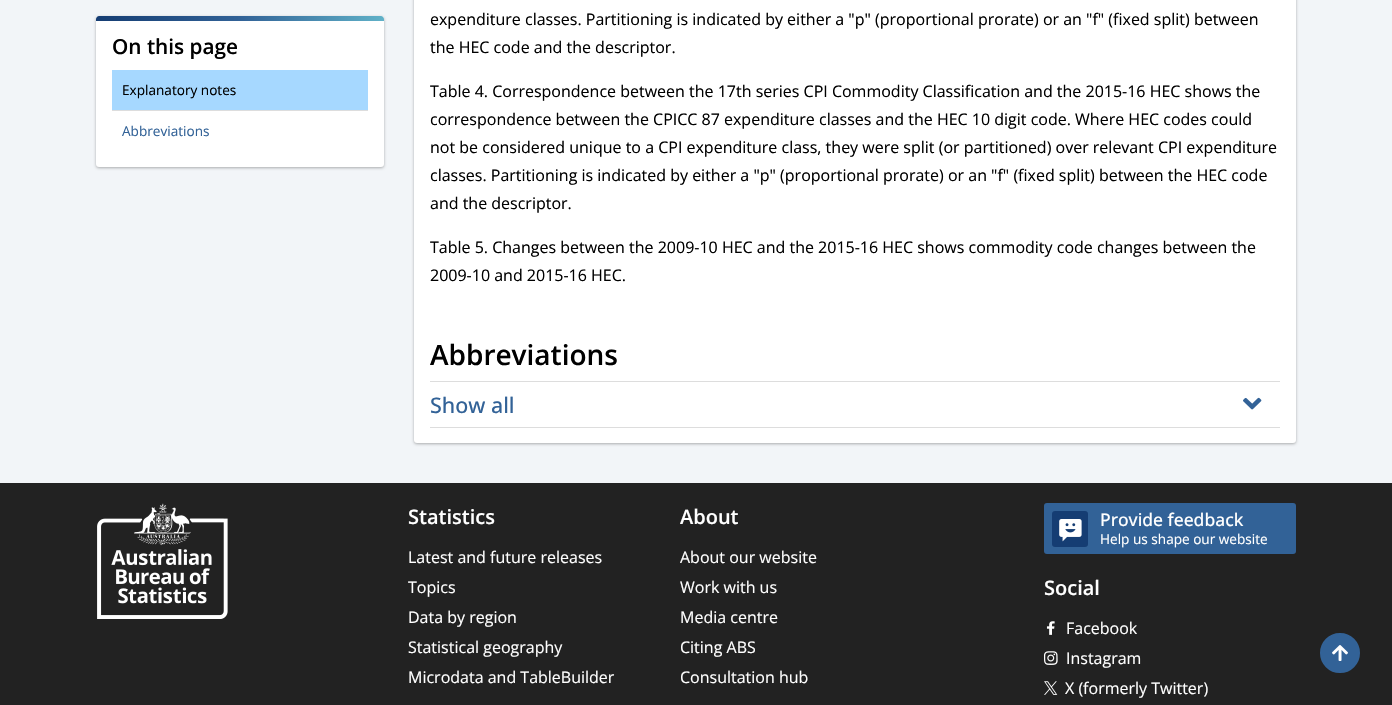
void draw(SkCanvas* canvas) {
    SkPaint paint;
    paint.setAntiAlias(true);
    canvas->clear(0xFFFFFFFF);
    {
        const SkColor colors[] = {0xFFFFFFFF, 0xFFF2F5F8};
        const float stops[] = {0.25f, 0.43f};
        const SkPoint ends[] = {{696, -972}, {696, 483}};
        paint.setShader(SkGradientShader::MakeLinear(ends, colors, stops, 2, SkTileMode::kClamp));
        paint.setAlpha(255);
    }
    canvas->drawRect(SkRect::MakeXYWH(0, 0, 1392, 483), paint);
    paint.setShader(nullptr);
    paint.setColor(0x4D000000);
    paint.setMaskFilter(SkMaskFilter::MakeBlur(kNormal_SkBlurStyle, 1.5f));
    canvas->drawRoundRect(SkRect::MakeXYWH(96, 17, 288, 151), 3, 3, paint);
    paint.setMaskFilter(nullptr);
    paint.setColor(0xFFFFFFFF);
    canvas->drawRoundRect(SkRect::MakeXYWH(96, 16, 288, 151), 3, 3, paint);
    {
        const SkColor colors[] = {0xFF153D73, 0xFF326297, 0xFF60B1C8};
        const float stops[] = {0, 0.5f, 1};
        const SkPoint ends[] = {{96, 19}, {384, 18}};
        paint.setShader(SkGradientShader::MakeLinear(ends, colors, stops, 3, SkTileMode::kClamp));
        paint.setAlpha(255);
    }
    canvas->drawPath(SkPathBuilder().moveTo(99, 16).lineTo(381, 16).cubicTo(382.5f, 16, 384, 17.5f, 384, 19).lineTo(384, 21).lineTo(96, 21).lineTo(96, 19).cubicTo(96, 17.5f, 97.5f, 16, 99, 16).close().detach(), paint);
    SkFont font1(fontMgr->matchFamilyStyle("Open Sans", SkFontStyle(600, SkFontStyle::kNormal_Width, SkFontStyle::kUpright_Slant)), 20.75f);
    font1.setSubpixel(true);
    paint.setShader(nullptr);
    paint.setColor(0xFF000000);
    canvas->drawString("On this page", 112, 54, font1, paint);
    paint.setColor(0xFFDDDDDD);
    canvas->drawRect(SkRect::MakeXYWH(112, 110, 256, 1), paint);
    paint.setColor(0xFFA6D8FF);
    canvas->drawRect(SkRect::MakeXYWH(112, 70, 256, 40), paint);
    SkFont font2(fontMgr->matchFamilyStyle("Open Sans", SkFontStyle::Normal()), 13.6f);
    font2.setSubpixel(true);
    paint.setColor(0xFF000000);
    canvas->drawString("Explanatory notes", 122, 95, font2, paint);
    paint.setColor(0xFF326297);
    canvas->drawString("Abbreviations", 122, 136, font2, paint);
    paint.setColor(0x4D000000);
    paint.setMaskFilter(SkMaskFilter::MakeBlur(kNormal_SkBlurStyle, 1.5f));
    canvas->drawRoundRect(SkRect::MakeXYWH(414, -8, 882, 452), 3, 3, paint);
    paint.setMaskFilter(nullptr);
    paint.setColor(0xFFFFFFFF);
    canvas->drawRoundRect(SkRect::MakeXYWH(414, -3, 882, 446), 3, 3, paint);
    SkFont font3(fontMgr->matchFamilyStyle("Open Sans", SkFontStyle::Normal()), 16);
    font3.setSubpixel(true);
    paint.setColor(0xFF000000);
    canvas->drawString("expenditure classes. Partitioning is indicated by either a \"p\" (proportional prorate) or an \"f\" (fixed split) between", 430, 25, font3, paint);
    canvas->drawString("the HEC code and the descriptor.", 430, 53, font3, paint);
    canvas->drawString("Table 4. Correspondence between the 17th series CPI Commodity Classification and the 2015-16 HEC shows the", 430, 97, font3, paint);
    canvas->drawString("correspondence between the CPICC 87 expenditure classes and the HEC 10 digit code. Where HEC codes could", 430, 125, font3, paint);
    canvas->drawString("not be considered unique to a CPI expenditure class, they were split (or partitioned) over relevant CPI expenditure", 430, 153, font3, paint);
    canvas->drawString("classes. Partitioning is indicated by either a \"p\" (proportional prorate) or an \"f\" (fixed split) between the HEC code", 430, 181, font3, paint);
    canvas->drawString("and the descriptor.", 430, 209, font3, paint);
    canvas->drawString("Table 5. Changes between the 2009-10 HEC and the 2015-16 HEC shows commodity code changes between the", 430, 253, font3, paint);
    canvas->drawString("2009-10 and 2015-16 HEC.", 430, 281, font3, paint);
    SkFont font4(fontMgr->matchFamilyStyle("Open Sans", SkFontStyle(600, SkFontStyle::kNormal_Width, SkFontStyle::kUpright_Slant)), 28);
    font4.setSubpixel(true);
    canvas->drawString("Abbreviations", 430, 365, font4, paint);
    paint.setColor(0xFFDDDDDD);
    canvas->drawRect(SkRect::MakeXYWH(430, 381, 850, 1), paint);
    canvas->drawRect(SkRect::MakeXYWH(430, 427, 850, 1), paint);
    SkFont font5(fontMgr->matchFamilyStyle("Open Sans", SkFontStyle(500, SkFontStyle::kNormal_Width, SkFontStyle::kUpright_Slant)), 21.5f);
    font5.setSubpixel(true);
    paint.setColor(0xFF326297);
    canvas->drawString("Show all", 430, 413, font5, paint);
    canvas->drawImageRect(SkImages::DeferredFromEncodedData(SkData::MakeFromFileName("img1.png")), SkRect::MakeXYWH(1243, 397, 19, 13), SkSamplingOptions());
    paint.setColor(0xFF222222);
    canvas->drawRect(SkRect::MakeXYWH(0, 483, 1392, 222), paint);
    paint.setColor(0xFF326297);
    canvas->drawCircle(1340, 653, 19, paint);
    paint.setStyle(SkPaint::kStroke_Style);
    paint.setStrokeWidth(2);
    canvas->drawCircle(1340, 653, 19, paint);
    canvas->drawImageRect(SkImages::DeferredFromEncodedData(SkData::MakeFromFileName("img2.png")), SkRect::MakeXYWH(1332, 645, 16, 16), SkSamplingOptions());
    canvas->drawImageRect(SkImages::DeferredFromEncodedData(SkData::MakeFromFileName("img3.png")), SkRect::MakeXYWH(97, 503, 131, 116), SkSamplingOptions());
    SkFont font6(fontMgr->matchFamilyStyle("Open Sans", SkFontStyle(600, SkFontStyle::kNormal_Width, SkFontStyle::kUpright_Slant)), 20);
    font6.setSubpixel(true);
    paint.setStyle(SkPaint::kFill_Style);
    paint.setColor(0xFFFFFFFF);
    canvas->drawString("Statistics", 408, 524, font6, paint);
    canvas->drawString("Latest and future releases", 408, 563, font3, paint);
    canvas->drawString("Topics", 408, 593, font3, paint);
    canvas->drawString("Data by region", 408, 623, font3, paint);
    canvas->drawString("Statistical geography", 408, 653, font3, paint);
    canvas->drawString("Microdata and TableBuilder", 408, 683, font3, paint);
    canvas->drawString("About", 680, 524, font6, paint);
    canvas->drawString("About our website", 680, 563, font3, paint);
    canvas->drawString("Work with us", 680, 593, font3, paint);
    canvas->drawString("Media centre", 680, 623, font3, paint);
    canvas->drawString("Citing ABS", 680, 653, font3, paint);
    canvas->drawString("Consultation hub", 680, 683, font3, paint);
    paint.setColor(0xFF326297);
    canvas->drawRoundRect(SkRect::MakeXYWH(1044, 503, 252, 51), 3, 3, paint);
    paint.setColor(0xFF153D73);
    canvas->drawRoundRect(SkRect::MakeXYWH(1052, 511, 36, 36), 3, 3, paint);
    canvas->drawImageRect(SkImages::DeferredFromEncodedData(SkData::MakeFromFileName("img4.png")), SkRect::MakeXYWH(1059, 519, 23, 23), SkSamplingOptions());
    SkFont font7(fontMgr->matchFamilyStyle("Open Sans", SkFontStyle(500, SkFontStyle::kNormal_Width, SkFontStyle::kUpright_Slant)), 17.5f);
    font7.setSubpixel(true);
    paint.setColor(0xFFFFFFFF);
    canvas->drawString("Provide feedback", 1100, 526, font7, paint);
    canvas->drawString("Help us shape our website", 1100, 544, font2, paint);
    canvas->drawString("Social", 1044, 595, font6, paint);
    canvas->drawImageRect(SkImages::DeferredFromEncodedData(SkData::MakeFromFileName("img5.png")), SkRect::MakeXYWH(1046, 621, 9, 14), SkSamplingOptions());
    canvas->drawString("Facebook", 1066, 634, font3, paint);
    canvas->drawImageRect(SkImages::DeferredFromEncodedData(SkData::MakeFromFileName("img6.png")), SkRect::MakeXYWH(1044, 651, 14, 14), SkSamplingOptions());
    canvas->drawString("Instagram", 1066, 664, font3, paint);
    canvas->drawImageRect(SkImages::DeferredFromEncodedData(SkData::MakeFromFileName("img7.png")), SkRect::MakeXYWH(1044, 681, 14, 14), SkSamplingOptions());
    canvas->drawString("X (formerly Twitter)", 1065, 694, font3, paint);
}
